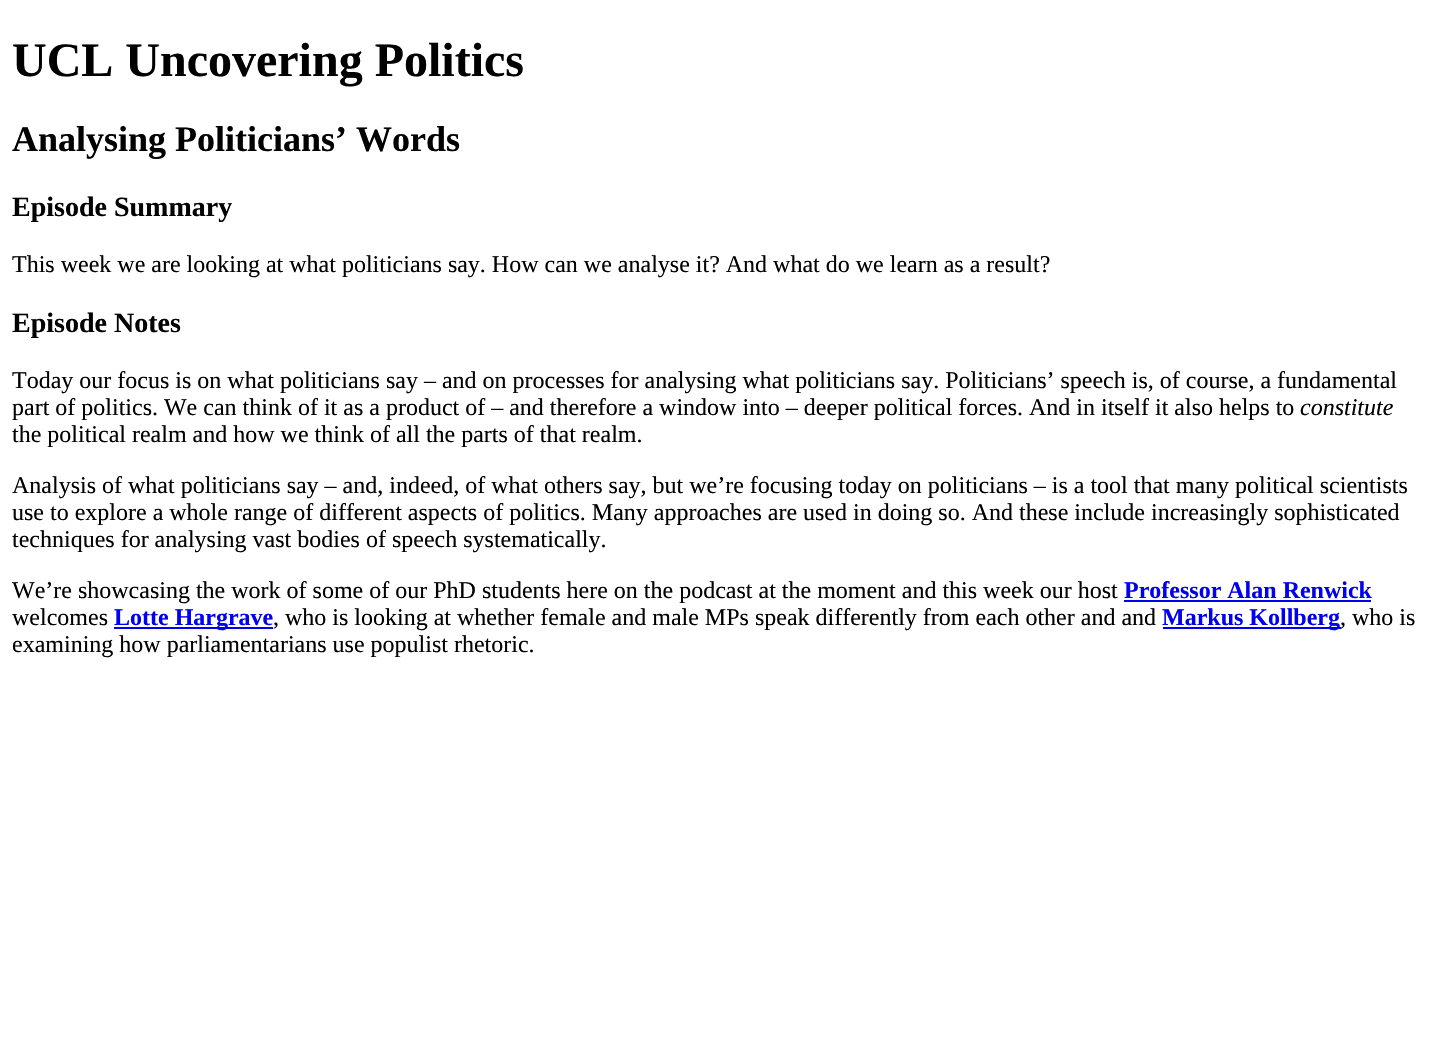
void draw(SkCanvas* canvas) {
    SkPaint paint;
    paint.setAntiAlias(true);
    canvas->clear(0xFFFFFFFF);
    SkFont font1(fontMgr->matchFamilyStyle("Liberation Serif", SkFontStyle::Bold()), 48);
    font1.setSubpixel(true);
    paint.setColor(0xFF000000);
    canvas->drawString("UCL Uncovering Politics", 12, 76, font1, paint);
    SkFont font2(fontMgr->matchFamilyStyle("Liberation Serif", SkFontStyle::Bold()), 36);
    font2.setSubpixel(true);
    canvas->drawString("Analysing Politicians’ Words", 12, 151, font2, paint);
    SkFont font3(fontMgr->matchFamilyStyle("Liberation Serif", SkFontStyle::Bold()), 28);
    font3.setSubpixel(true);
    canvas->drawString("Episode Summary", 12, 216, font3, paint);
    SkFont font4(fontMgr->matchFamilyStyle("Liberation Serif", SkFontStyle::Normal()), 24);
    font4.setSubpixel(true);
    canvas->drawString("This week we are looking at what politicians say. How can we analyse it? And what do we learn as a result?", 12, 272, font4, paint);
    canvas->drawString("Episode Notes", 12, 332, font3, paint);
    canvas->drawString("Today our focus is on what politicians say – and on processes for analysing what politicians say. Politicians’ speech is, of course, a fundamental", 12, 388, font4, paint);
    canvas->drawString("part of politics. We can think of it as a product of – and therefore a window into – deeper political forces. And in itself it also helps to", 12, 415, font4, paint);
    SkFont font5(fontMgr->matchFamilyStyle("Liberation Serif", SkFontStyle::Italic()), 24);
    font5.setSubpixel(true);
    canvas->drawString("constitute", 1300, 415, font5, paint);
    canvas->drawString("the political realm and how we think of all the parts of that realm.", 12, 442, font4, paint);
    canvas->drawString("Analysis of what politicians say – and, indeed, of what others say, but we’re focusing today on politicians – is a tool that many political scientists", 12, 493, font4, paint);
    canvas->drawString("use to explore a whole range of different aspects of politics. Many approaches are used in doing so. And these include increasingly sophisticated", 12, 520, font4, paint);
    canvas->drawString("techniques for analysing vast bodies of speech systematically.", 12, 547, font4, paint);
    canvas->drawString("We’re showcasing the work of some of our PhD students here on the podcast at the moment and this week our host", 12, 598, font4, paint);
    SkFont font6(fontMgr->matchFamilyStyle("Liberation Serif", SkFontStyle::Bold()), 24);
    font6.setSubpixel(true);
    paint.setColor(0xFF0000EE);
    canvas->drawString("Professor Alan Renwick", 1124, 598, font6, paint);
    canvas->drawRect(SkRect::MakeXYWH(1124, 600, 247, 2), paint);
    paint.setColor(0xFF000000);
    canvas->drawString("welcomes", 12, 625, font4, paint);
    paint.setColor(0xFF0000EE);
    canvas->drawRect(SkRect::MakeXYWH(114, 627, 159, 2), paint);
    canvas->drawString("Lotte Hargrave", 114, 625, font6, paint);
    paint.setColor(0xFF000000);
    canvas->drawString(", who is looking at whether female and male MPs speak differently from each other and and", 273, 625, font4, paint);
    paint.setColor(0xFF0000EE);
    canvas->drawRect(SkRect::MakeXYWH(1163, 627, 178, 2), paint);
    canvas->drawString("Markus Kollberg", 1162, 625, font6, paint);
    paint.setColor(0xFF000000);
    canvas->drawString(", who is", 1340, 625, font4, paint);
    canvas->drawString("examining how parliamentarians use populist rhetoric.", 12, 652, font4, paint);
}
